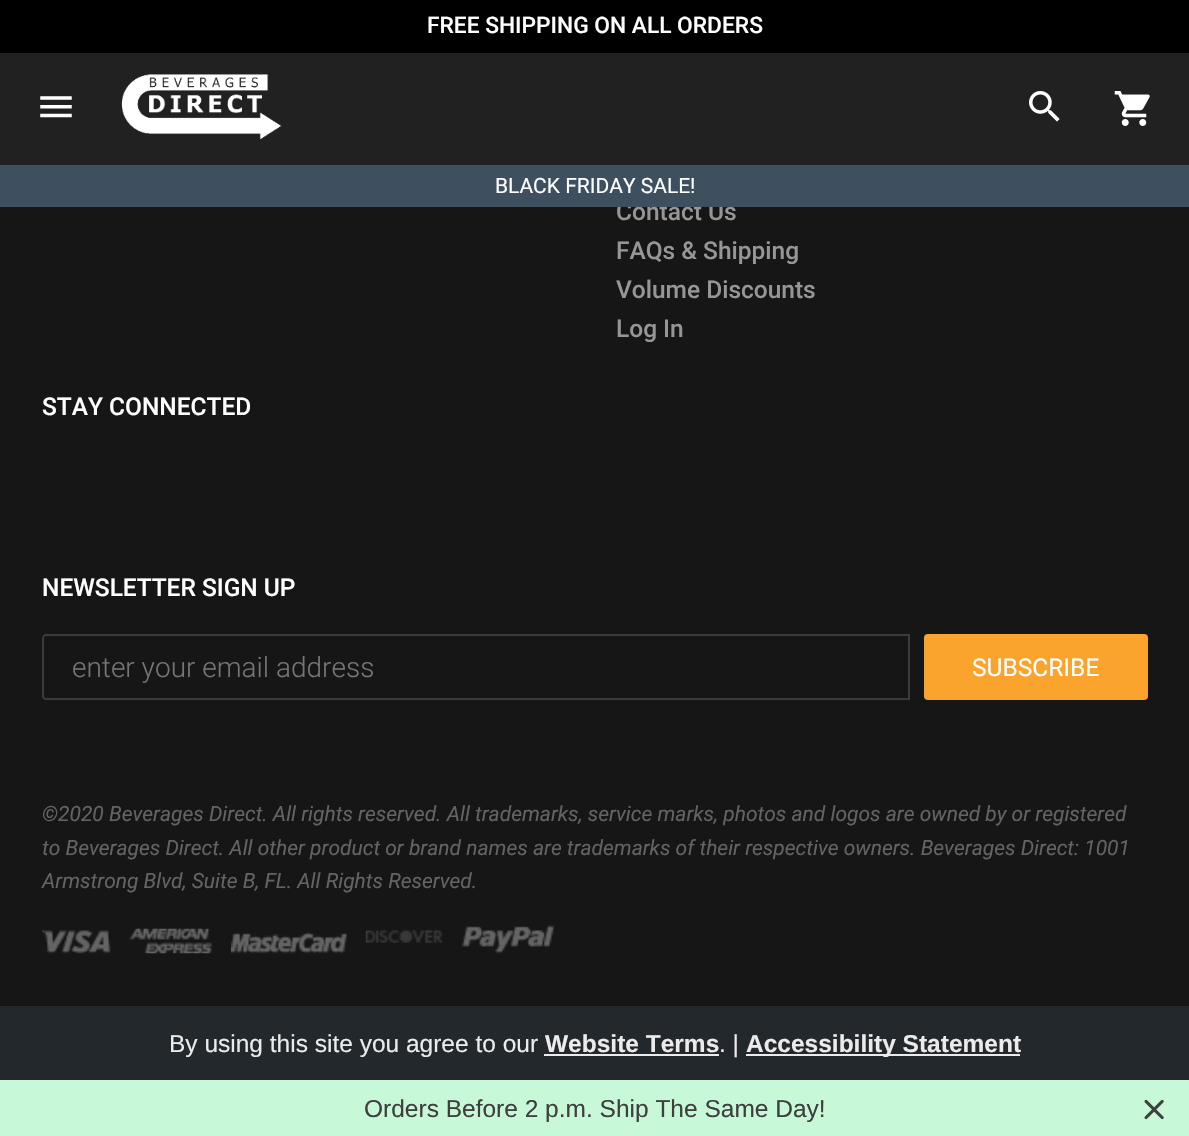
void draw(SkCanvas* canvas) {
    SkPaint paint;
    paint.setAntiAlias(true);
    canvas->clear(0xFF23282D);
    paint.setColor(0xFF000000);
    canvas->drawRect(SkRect::MakeXYWH(0, 0, 1189, 53), paint);
    SkFont font1(fontMgr->matchFamilyStyle("Roboto", SkFontStyle(500, SkFontStyle::kNormal_Width, SkFontStyle::kUpright_Slant)), 22.75f);
    font1.setSubpixel(true);
    paint.setColor(0xFFFFFFFF);
    canvas->drawString("FREE SHIPPING ON ALL ORDERS", 427, 33, font1, paint);
    paint.setColor(0xFF212121);
    canvas->drawRect(SkRect::MakeXYWH(0, 53, 1189, 112), paint);
    canvas->drawImageRect(SkImages::DeferredFromEncodedData(SkData::MakeFromFileName("img1.png")), SkRect::MakeXYWH(40, 96, 32, 22), SkSamplingOptions());
    canvas->drawImageRect(SkImages::DeferredFromEncodedData(SkData::MakeFromFileName("img2.png")), SkRect::MakeXYWH(121, 74, 161, 66), SkSamplingOptions());
    canvas->drawImageRect(SkImages::DeferredFromEncodedData(SkData::MakeFromFileName("img3.png")), SkRect::MakeXYWH(1029, 91, 31, 31), SkSamplingOptions());
    canvas->drawImageRect(SkImages::DeferredFromEncodedData(SkData::MakeFromFileName("img4.png")), SkRect::MakeXYWH(1114, 91, 36, 35), SkSamplingOptions());
    paint.setColor(0xFF161616);
    canvas->drawRect(SkRect::MakeXYWH(0, 207, 1189, 799), paint);
    SkFont font2(fontMgr->matchFamilyStyle("Roboto", SkFontStyle(500, SkFontStyle::kNormal_Width, SkFontStyle::kUpright_Slant)), 24.5f);
    font2.setSubpixel(true);
    paint.setColor(0xFF969696);
    canvas->drawString("Contact Us", 616, 220, font2, paint);
    paint.setColor(0xFF3E4F60);
    canvas->drawRect(SkRect::MakeXYWH(0, 165, 1189, 42), paint);
    SkFont font3(fontMgr->matchFamilyStyle("Roboto", SkFontStyle::Normal()), 21);
    font3.setSubpixel(true);
    paint.setColor(0xFFFFFFFF);
    canvas->drawString("BLACK FRIDAY SALE!", 495, 193, font3, paint);
    paint.setColor(0xFF969696);
    canvas->drawString("FAQs & Shipping", 616, 259, font2, paint);
    canvas->drawString("Volume Discounts", 616, 298, font2, paint);
    canvas->drawString("Log In", 616, 337, font2, paint);
    paint.setColor(0xFFFFFFFF);
    canvas->drawString("STAY CONNECTED", 42, 415, font2, paint);
    canvas->drawString("NEWSLETTER SIGN UP", 42, 596, font2, paint);
    paint.setStyle(SkPaint::kStroke_Style);
    paint.setStrokeWidth(2);
    paint.setColor(0xFF3B3B3B);
    canvas->drawPath(SkPathBuilder().moveTo(46, 635).lineTo(909, 635).lineTo(909, 699).lineTo(46, 699).cubicTo(44.5f, 699, 43, 697.5f, 43, 696).lineTo(43, 638).cubicTo(43, 636.5f, 44.5f, 635, 46, 635).close().detach(), paint);
    SkFont font4(fontMgr->matchFamilyStyle("Roboto", SkFontStyle(300, SkFontStyle::kNormal_Width, SkFontStyle::kUpright_Slant)), 28);
    font4.setSubpixel(true);
    paint.setStyle(SkPaint::kFill_Style);
    paint.setColor(0xFF757575);
    canvas->drawString("enter your email address", 72, 677, font4, paint);
    paint.setColor(0xFFFAA42E);
    canvas->drawRoundRect(SkRect::MakeXYWH(924, 634, 224, 66), 4, 4, paint);
    SkFont font5(fontMgr->matchFamilyStyle("Roboto", SkFontStyle::Normal()), 24.5f);
    font5.setSubpixel(true);
    paint.setColor(0xFFFFFFFF);
    canvas->drawString("SUBSCRIBE", 972, 676, font5, paint);
    SkFont font6(fontMgr->matchFamilyStyle("Roboto", SkFontStyle::Italic()), 21);
    font6.setSubpixel(true);
    paint.setColor(0xFF636363);
    canvas->drawString("©2020 Beverages Direct. All rights reserved. All trademarks, service marks, photos and logos are owned by or registered", 42, 821, font6, paint);
    canvas->drawString("to Beverages Direct. All other product or brand names are trademarks of their respective owners. Beverages Direct: 1001", 42, 855, font6, paint);
    canvas->drawString("Armstrong Blvd, Suite B, FL. All Rights Reserved.", 42, 888, font6, paint);
    canvas->drawImageRect(SkImages::DeferredFromEncodedData(SkData::MakeFromFileName("img5.png")), SkRect::MakeXYWH(42, 930, 69, 24), SkSamplingOptions());
    canvas->drawImageRect(SkImages::DeferredFromEncodedData(SkData::MakeFromFileName("img6.png")), SkRect::MakeXYWH(129, 928, 83, 26), SkSamplingOptions());
    canvas->drawImageRect(SkImages::DeferredFromEncodedData(SkData::MakeFromFileName("img7.png")), SkRect::MakeXYWH(231, 932, 116, 22), SkSamplingOptions());
    canvas->drawImageRect(SkImages::DeferredFromEncodedData(SkData::MakeFromFileName("img8.png")), SkRect::MakeXYWH(365, 930, 78, 13), SkSamplingOptions());
    canvas->drawImageRect(SkImages::DeferredFromEncodedData(SkData::MakeFromFileName("img9.png")), SkRect::MakeXYWH(462, 925, 93, 29), SkSamplingOptions());
    SkFont font7(fontMgr->matchFamilyStyle("Liberation Sans", SkFontStyle::Normal()), 24.5f);
    font7.setSubpixel(true);
    paint.setColor(0xFFEBEBEB);
    canvas->drawString("By using this site you agree to our", 169, 1052, font7, paint);
    SkFont font8(fontMgr->matchFamilyStyle("Liberation Sans", SkFontStyle::Bold()), 24.5f);
    font8.setSubpixel(true);
    canvas->drawString("Website Terms", 545, 1052, font8, paint);
    canvas->drawRect(SkRect::MakeXYWH(544, 1054, 175, 2), paint);
    canvas->drawString(". |", 719, 1052, font7, paint);
    canvas->drawRect(SkRect::MakeXYWH(746, 1054, 274, 2), paint);
    canvas->drawString("Accessibility Statement", 746, 1052, font8, paint);
    paint.setColor(0xFFC7F9D8);
    canvas->drawRect(SkRect::MakeXYWH(0, 1080, 1189, 56), paint);
    paint.setColor(0xFF3F3F3F);
    canvas->drawString("Orders Before 2 p.m. Ship The Same Day!", 364, 1117, font7, paint);
    canvas->drawImageRect(SkImages::DeferredFromEncodedData(SkData::MakeFromFileName("img10.png")), SkRect::MakeXYWH(1144, 1099, 20, 21), SkSamplingOptions());
}
